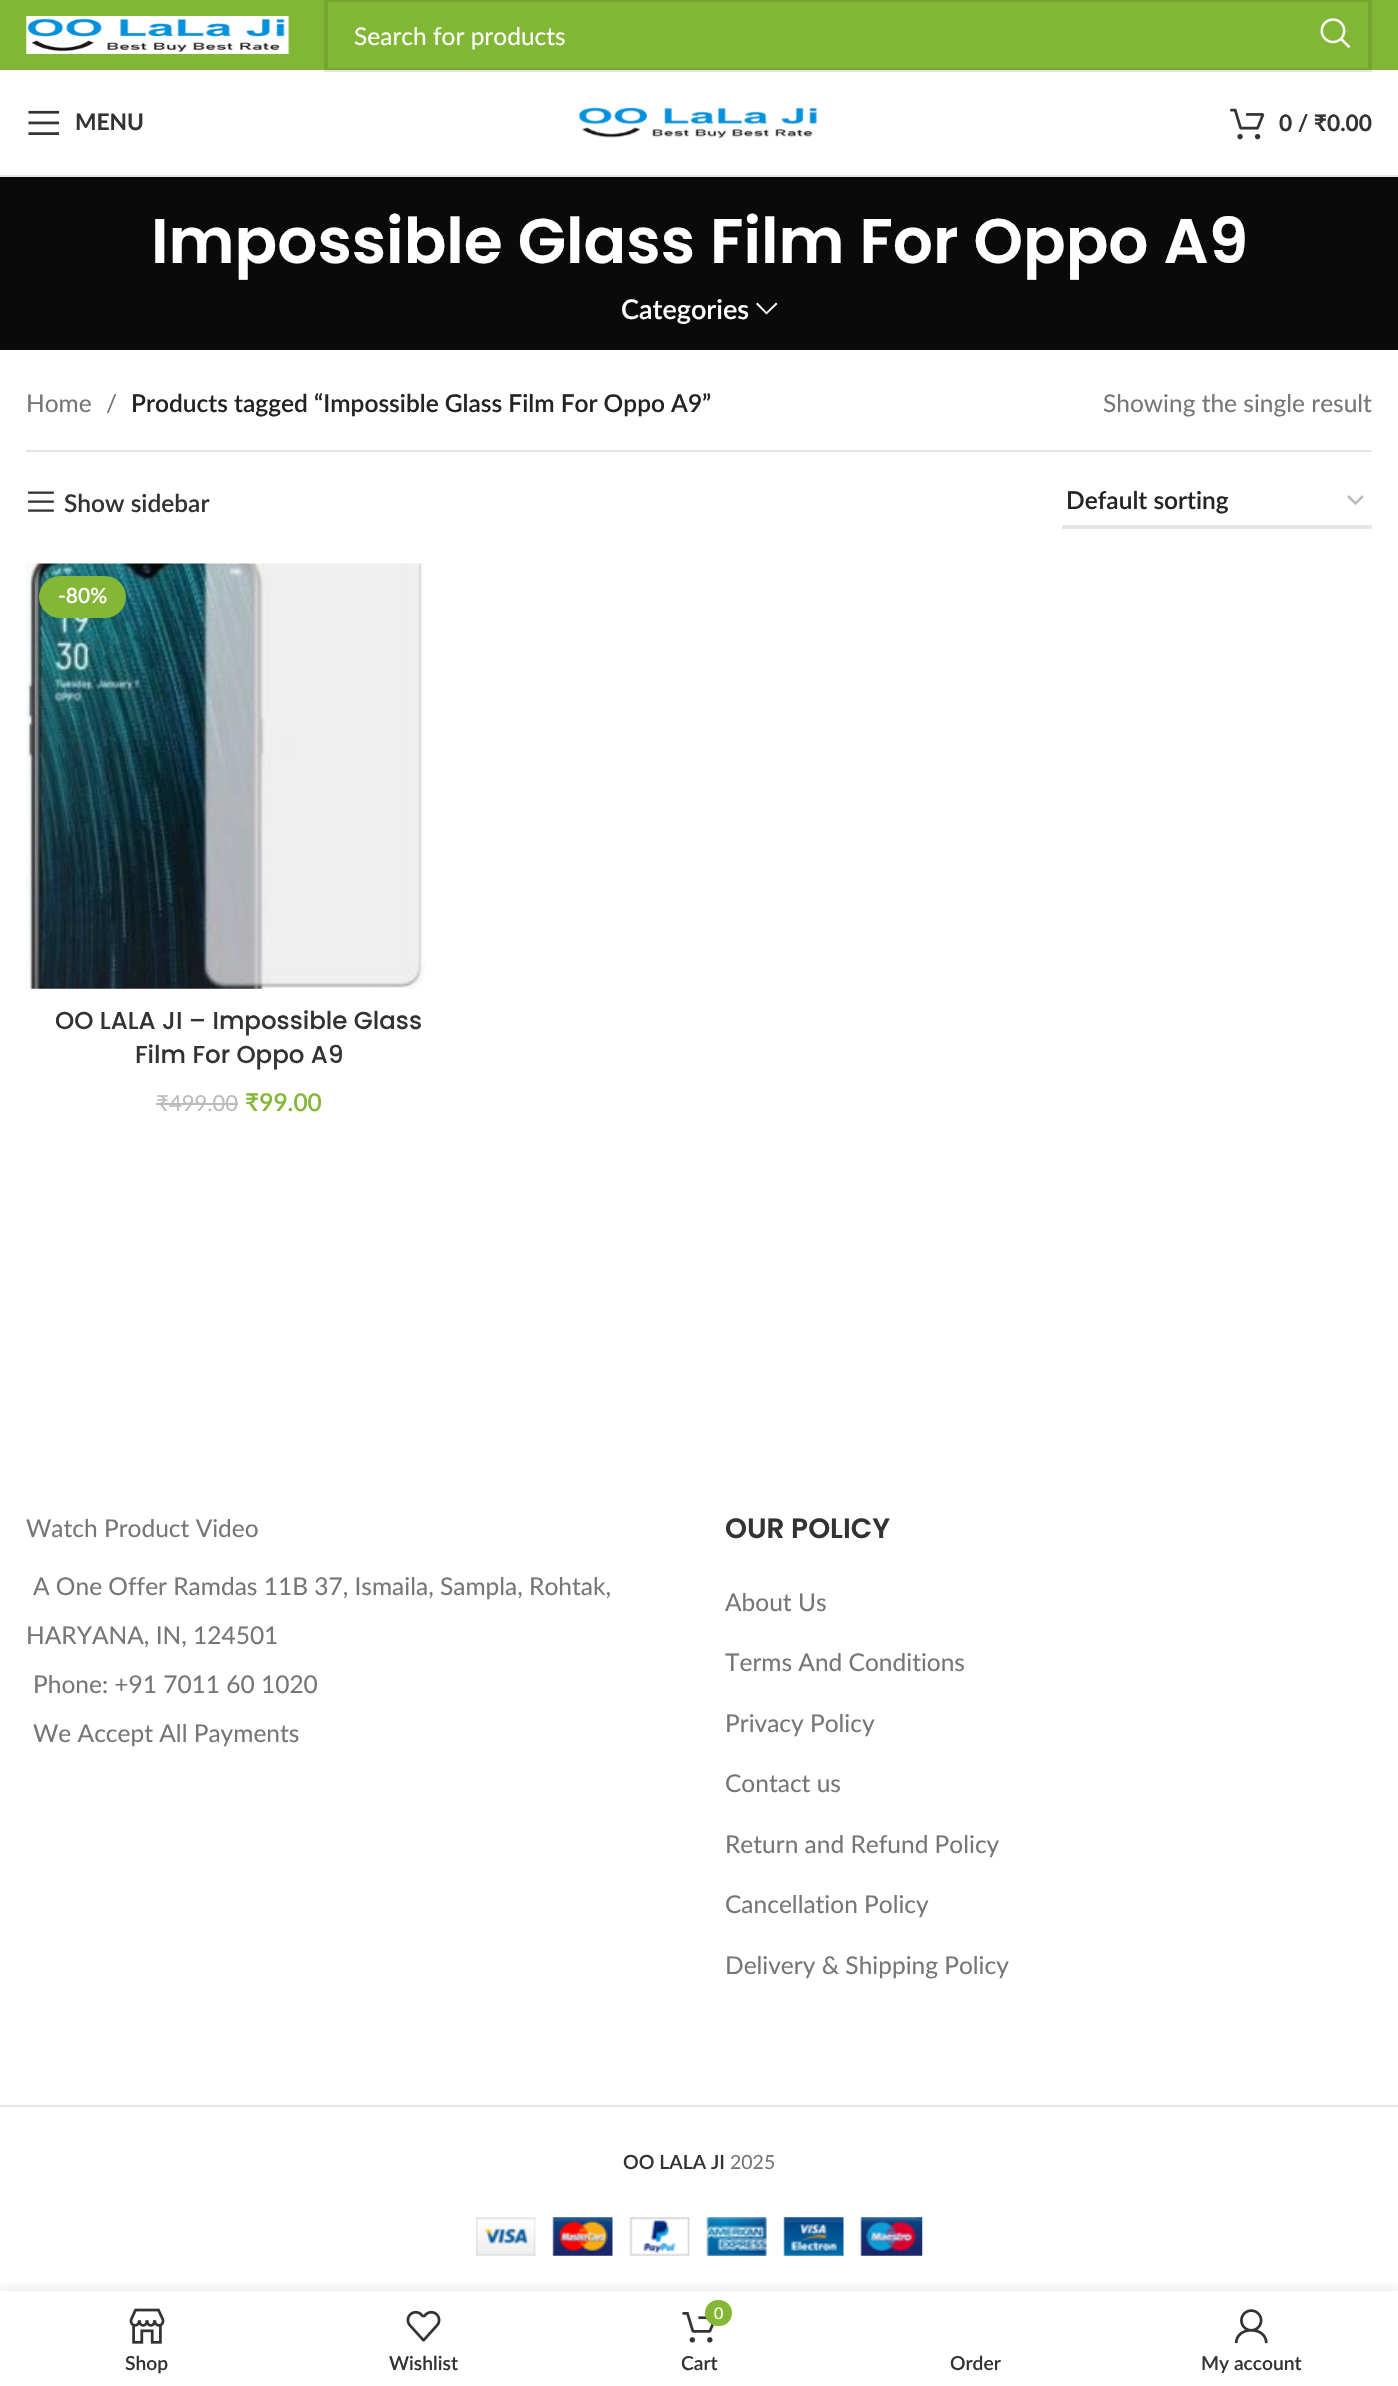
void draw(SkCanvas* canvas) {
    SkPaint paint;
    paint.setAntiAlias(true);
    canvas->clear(0xFFFFFFFF);
    paint.setColor(0xFF82B735);
    canvas->drawRect(SkRect::MakeXYWH(0, 0, 1398, 70), paint);
    canvas->drawImageRect(SkImages::DeferredFromEncodedData(SkData::MakeFromFileName("img1.png")), SkRect::MakeXYWH(26, 16, 264, 38), SkSamplingOptions());
    paint.setStyle(SkPaint::kStroke_Style);
    paint.setStrokeWidth(4);
    paint.setColor(0x1A000000);
    canvas->drawRect(SkRect::MakeXYWH(326, 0, 1044, 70), paint);
    SkFont font1(fontMgr->matchFamilyStyle("Lato", SkFontStyle::Normal()), 24.5f);
    font1.setSubpixel(true);
    paint.setStyle(SkPaint::kFill_Style);
    paint.setColor(0xFFFFFFFF);
    canvas->drawString("Search for products", 354, 45, font1, paint);
    canvas->drawImageRect(SkImages::DeferredFromEncodedData(SkData::MakeFromFileName("img2.png")), SkRect::MakeXYWH(1320, 18, 31, 30), SkSamplingOptions());
    paint.setColor(0xFFE6E6E6);
    canvas->drawRect(SkRect::MakeXYWH(0, 175, 1398, 2), paint);
    canvas->drawImageRect(SkImages::DeferredFromEncodedData(SkData::MakeFromFileName("img3.png")), SkRect::MakeXYWH(28, 110, 32, 25), SkSamplingOptions());
    SkFont font2(fontMgr->matchFamilyStyle("Lato", SkFontStyle::Bold()), 22.75f);
    font2.setSubpixel(true);
    paint.setColor(0xFF333333);
    canvas->drawString("MENU", 75, 130, font2, paint);
    canvas->drawImageRect(SkImages::DeferredFromEncodedData(SkData::MakeFromFileName("img4.png")), SkRect::MakeXYWH(578, 107, 239, 32), SkSamplingOptions());
    canvas->drawImageRect(SkImages::DeferredFromEncodedData(SkData::MakeFromFileName("img5.png")), SkRect::MakeXYWH(1230, 108, 35, 32), SkSamplingOptions());
    canvas->drawString("0 / ₹0.00", 1279, 131, font2, paint);
    paint.setColor(0xFF0A0A0A);
    canvas->drawRect(SkRect::MakeXYWH(0, 177, 1398, 173), paint);
    SkFont font3(fontMgr->matchFamilyStyle("Poppins", SkFontStyle(600, SkFontStyle::kNormal_Width, SkFontStyle::kUpright_Slant)), 63);
    font3.setSubpixel(true);
    paint.setColor(0xFFFFFFFF);
    canvas->drawString("Impossible Glass Film For Oppo A9", 151, 263, font3, paint);
    SkFont font4(fontMgr->matchFamilyStyle("Lato", SkFontStyle(600, SkFontStyle::kNormal_Width, SkFontStyle::kUpright_Slant)), 27);
    font4.setSubpixel(true);
    canvas->drawString("Categories", 621, 319, font4, paint);
    canvas->drawPath(SkPathBuilder().moveTo(776, 302.5f).lineTo(766.5f, 312).lineTo(757.5f, 302.5f).lineTo(756, 304).lineTo(766.5f, 314.5f).lineTo(777.5f, 304).close().detach(), paint);
    paint.setColor(0xFFE4E4E4);
    canvas->drawRect(SkRect::MakeXYWH(26, 450, 1346, 2), paint);
    paint.setColor(0xFF767676);
    canvas->drawString("Home", 26, 412, font1, paint);
    canvas->drawString("/", 106, 412, font1, paint);
    SkFont font5(fontMgr->matchFamilyStyle("Lato", SkFontStyle(600, SkFontStyle::kNormal_Width, SkFontStyle::kUpright_Slant)), 24.5f);
    font5.setSubpixel(true);
    paint.setColor(0xFF242424);
    canvas->drawString("Products tagged “Impossible Glass Film For Oppo A9”", 131, 412, font5, paint);
    paint.setColor(0xFF767676);
    canvas->drawString("Showing the single result", 1103, 412, font1, paint);
    canvas->drawImageRect(SkImages::DeferredFromEncodedData(SkData::MakeFromFileName("img6.png")), SkRect::MakeXYWH(28, 491, 26, 21), SkSamplingOptions());
    paint.setColor(0xFF333333);
    canvas->drawString("Show sidebar", 64, 512, font5, paint);
    paint.setStyle(SkPaint::kStroke_Style);
    paint.setStrokeWidth(2.5f);
    paint.setColor(0xFFBBBBBB);
    canvas->drawPath(SkPathBuilder().moveTo(1348, 496).lineTo(1355.5f, 503.5f).lineTo(1363, 496).detach(), paint);
    paint.setStyle(SkPaint::kFill_Style);
    paint.setColor(0xFFE6E6E6);
    canvas->drawRect(SkRect::MakeXYWH(1062, 525, 310, 4), paint);
    paint.setColor(0xFF242424);
    canvas->drawString("Default sorting", 1066, 509, font5, paint);
    canvas->drawImageRect(SkImages::DeferredFromEncodedData(SkData::MakeFromFileName("img7.png")), SkRect::MakeXYWH(26, 563, 399, 426), SkSamplingOptions());
    paint.setColor(0xFF83B735);
    canvas->drawRoundRect(SkRect::MakeXYWH(39, 576, 87, 42), 21, 21, paint);
    SkFont font6(fontMgr->matchFamilyStyle("Lato", SkFontStyle(600, SkFontStyle::kNormal_Width, SkFontStyle::kUpright_Slant)), 21);
    font6.setSubpixel(true);
    paint.setColor(0xFFFFFFFF);
    canvas->drawString("-80%", 58, 603, font6, paint);
    SkFont font7(fontMgr->matchFamilyStyle("Poppins", SkFontStyle(500, SkFontStyle::kNormal_Width, SkFontStyle::kUpright_Slant)), 24.5f);
    font7.setSubpixel(true);
    paint.setColor(0xFF333333);
    canvas->drawString("OO LALA JI – Impossible Glass", 55, 1029, font7, paint);
    canvas->drawString("Film For Oppo A9", 135, 1063, font7, paint);
    SkFont font8(fontMgr->matchFamilyStyle("Lato", SkFontStyle::Normal()), 22);
    font8.setSubpixel(true);
    paint.setColor(0xFFBBBBBB);
    canvas->drawString("₹", 156, 1111, font8, paint);
    canvas->drawRect(SkRect::MakeXYWH(156, 1103, 14, 2), paint);
    canvas->drawString("499.00", 169, 1111, font8, paint);
    canvas->drawRect(SkRect::MakeXYWH(170, 1103, 68, 2), paint);
    paint.setColor(0xFF83B735);
    canvas->drawString("₹99.00", 245, 1111, font5, paint);
    paint.setColor(0xFF767676);
    canvas->drawString("Watch Product Video", 26, 1537, font1, paint);
    canvas->drawString("A One Offer Ramdas 11B 37, Ismaila, Sampla, Rohtak,", 33, 1595, font1, paint);
    canvas->drawString("HARYANA, IN, 124501", 26, 1644, font1, paint);
    canvas->drawString("Phone: +91 7011 60 1020", 33, 1693, font1, paint);
    canvas->drawString("We Accept All Payments", 33, 1742, font1, paint);
    SkFont font9(fontMgr->matchFamilyStyle("Poppins", SkFontStyle(600, SkFontStyle::kNormal_Width, SkFontStyle::kUpright_Slant)), 28);
    font9.setSubpixel(true);
    paint.setColor(0xFF333333);
    canvas->drawString("OUR POLICY", 725, 1538, font9, paint);
    paint.setColor(0xFF767676);
    canvas->drawString("About Us", 725, 1611, font1, paint);
    canvas->drawString("Terms And Conditions", 725, 1671, font1, paint);
    canvas->drawString("Privacy Policy", 725, 1732, font1, paint);
    canvas->drawString("Contact us", 725, 1792, font1, paint);
    canvas->drawString("Return and Refund Policy", 725, 1853, font1, paint);
    canvas->drawString("Cancellation Policy", 725, 1913, font1, paint);
    canvas->drawString("Delivery & Shipping Policy", 725, 1974, font1, paint);
    paint.setColor(0xFFE4E4E4);
    canvas->drawRect(SkRect::MakeXYWH(0, 2105, 1398, 2), paint);
    SkFont font10(fontMgr->matchFamilyStyle("Lato", SkFontStyle(600, SkFontStyle::kNormal_Width, SkFontStyle::kUpright_Slant)), 19.5f);
    font10.setSubpixel(true);
    paint.setColor(0xFF333333);
    canvas->drawString("OO LALA JI", 623, 2169, font10, paint);
    SkFont font11(fontMgr->matchFamilyStyle("Lato", SkFontStyle::Normal()), 19.5f);
    font11.setSubpixel(true);
    paint.setColor(0xFF767676);
    canvas->drawString("2025", 730, 2169, font11, paint);
    canvas->drawImageRect(SkImages::DeferredFromEncodedData(SkData::MakeFromFileName("img8.png")), SkRect::MakeXYWH(476, 2217, 447, 39), SkSamplingOptions());
    canvas->save();
    canvas->clipRect(SkRect::MakeXYWH(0, 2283, 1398, 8));
    paint.setColor(0x1F000000);
    paint.setMaskFilter(SkMaskFilter::MakeBlur(kNormal_SkBlurStyle, 8));
    canvas->drawRect(SkRect::MakeXYWH(0, 2291, 1398, 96), paint);
    paint.setMaskFilter(nullptr);
    canvas->restore();
    canvas->drawImageRect(SkImages::DeferredFromEncodedData(SkData::MakeFromFileName("img9.png")), SkRect::MakeXYWH(129, 2308, 36, 36), SkSamplingOptions());
    SkFont font12(fontMgr->matchFamilyStyle("Lato", SkFontStyle(600, SkFontStyle::kNormal_Width, SkFontStyle::kUpright_Slant)), 19.25f);
    font12.setSubpixel(true);
    paint.setColor(0xFF333333);
    canvas->drawString("Shop", 125, 2370, font12, paint);
    canvas->drawImageRect(SkImages::DeferredFromEncodedData(SkData::MakeFromFileName("img10.png")), SkRect::MakeXYWH(406, 2310, 35, 32), SkSamplingOptions());
    canvas->drawString("Wishlist", 389, 2370, font12, paint);
    canvas->drawImageRect(SkImages::DeferredFromEncodedData(SkData::MakeFromFileName("img11.png")), SkRect::MakeXYWH(682, 2312, 32, 31), SkSamplingOptions());
    paint.setColor(0xFF83B735);
    canvas->drawRoundRect(SkRect::MakeXYWH(705, 2300, 27, 26), 13, 13, paint);
    SkFont font13(fontMgr->matchFamilyStyle("Lato", SkFontStyle::Normal()), 16);
    font13.setSubpixel(true);
    paint.setColor(0xFFFFFFFF);
    canvas->drawString("0", 714, 2319, font13, paint);
    paint.setColor(0xFF333333);
    canvas->drawString("Cart", 681, 2370, font12, paint);
    canvas->drawString("Order", 950, 2370, font12, paint);
    canvas->drawImageRect(SkImages::DeferredFromEncodedData(SkData::MakeFromFileName("img12.png")), SkRect::MakeXYWH(1234, 2309, 34, 35), SkSamplingOptions());
    canvas->save();
    canvas->clipRect(SkRect::MakeXYWH(1131, 2350, 241, 23));
    canvas->drawString("My account", 1201, 2370, font12, paint);
    canvas->restore();
}
